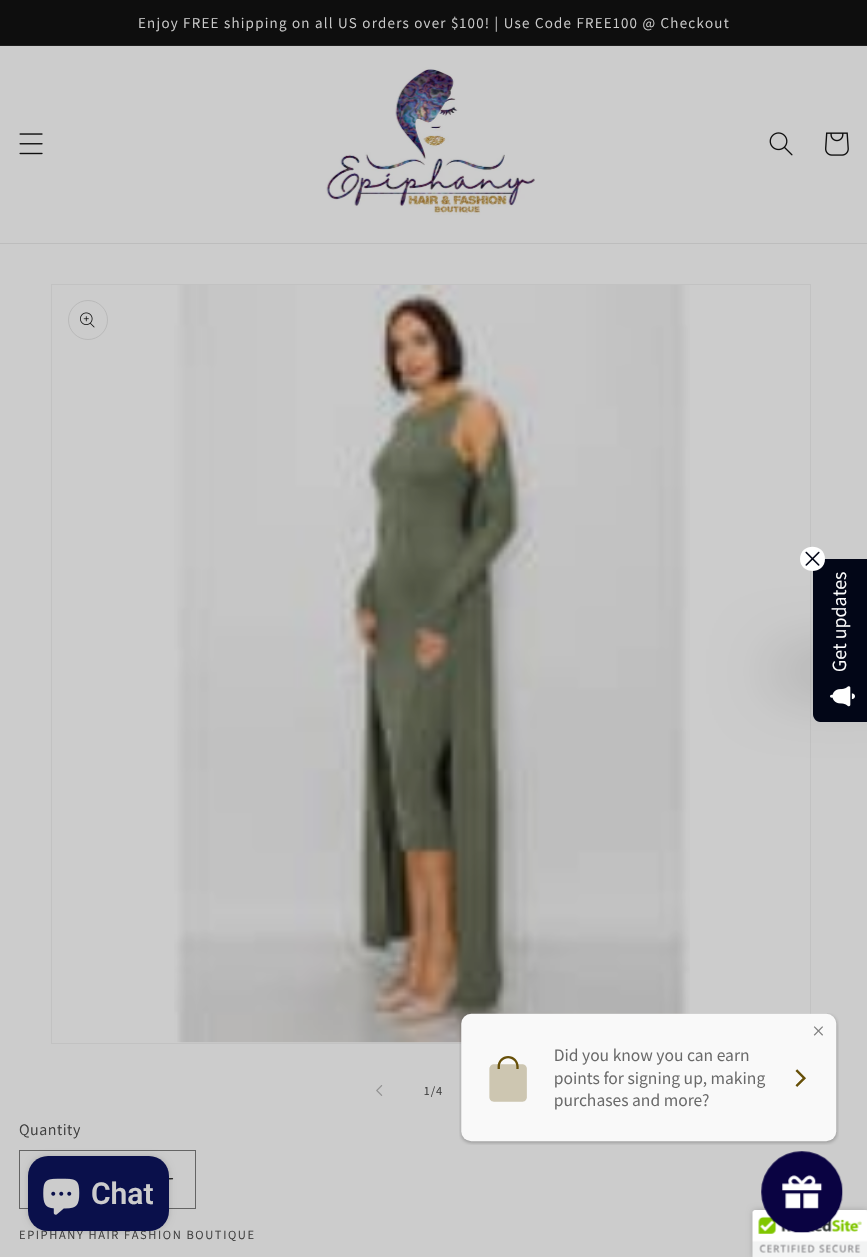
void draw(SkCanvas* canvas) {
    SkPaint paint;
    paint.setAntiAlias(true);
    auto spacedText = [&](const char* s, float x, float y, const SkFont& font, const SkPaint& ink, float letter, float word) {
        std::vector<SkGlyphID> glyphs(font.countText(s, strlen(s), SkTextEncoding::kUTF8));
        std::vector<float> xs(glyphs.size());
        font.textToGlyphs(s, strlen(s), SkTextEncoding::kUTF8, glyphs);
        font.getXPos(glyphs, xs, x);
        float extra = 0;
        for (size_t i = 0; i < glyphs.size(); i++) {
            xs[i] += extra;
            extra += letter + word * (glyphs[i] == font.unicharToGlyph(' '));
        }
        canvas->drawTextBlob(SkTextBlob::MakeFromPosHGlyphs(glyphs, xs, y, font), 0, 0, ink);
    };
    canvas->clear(0xFFCCCCCC);
    paint.setColor(0xFF0E0E0E);
    canvas->drawRect(SkRect::MakeXYWH(0, 0, 867, 45), paint);
    paint.setColor(0xFF1E1E1E);
    canvas->drawRect(SkRect::MakeXYWH(0, 45, 867, 1), paint);
    SkFont font1(fontMgr->matchFamilyStyle("Assistant", SkFontStyle::Normal()), 15);
    font1.setSubpixel(true);
    paint.setColor(0xFFCCCCCC);
    spacedText("Enjoy FREE shipping on all US orders over $100! | Use Code FREE100 @ Checkout", 138, 28, font1, paint, 1.25f, 0);
    paint.setColor(0xFFBDBDBD);
    canvas->drawRect(SkRect::MakeXYWH(0, 243, 867, 1), paint);
    canvas->drawImageRect(SkImages::DeferredFromEncodedData(SkData::MakeFromFileName("img1.png")), SkRect::MakeXYWH(19, 133, 24, 22), SkSamplingOptions());
    canvas->drawImageRect(SkImages::DeferredFromEncodedData(SkData::MakeFromFileName("img2.png")), SkRect::MakeXYWH(325, 67, 210, 148), SkSamplingOptions());
    canvas->drawImageRect(SkImages::DeferredFromEncodedData(SkData::MakeFromFileName("img3.png")), SkRect::MakeXYWH(769, 132, 24, 24), SkSamplingOptions());
    canvas->drawImageRect(SkImages::DeferredFromEncodedData(SkData::MakeFromFileName("img4.png")), SkRect::MakeXYWH(825, 132, 24, 24), SkSamplingOptions());
    paint.setStyle(SkPaint::kStroke_Style);
    paint.setStrokeWidth(1);
    paint.setColor(0xFFC2C2C2);
    canvas->drawRect(SkRect::MakeXYWH(51.5f, 284.5f, 759, 759), paint);
    canvas->drawImageRect(SkImages::DeferredFromEncodedData(SkData::MakeFromFileName("img8.png")), SkRect::MakeXYWH(174, 285, 516, 758), SkSamplingOptions());
    paint.setStyle(SkPaint::kFill_Style);
    paint.setColor(0x40000000);
    paint.setMaskFilter(SkMaskFilter::MakeBlur(kNormal_SkBlurStyle, 31));
    canvas->drawRect(SkRect::MakeXYWH(774, 659, 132, 25), paint);
    paint.setMaskFilter(nullptr);
    paint.setColor(0xFF020617);
    canvas->drawPath(SkPathBuilder().moveTo(813, 714).lineTo(813, 566).cubicTo(813, 562, 816, 559, 820, 559).lineTo(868, 559).lineTo(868, 722).lineTo(820, 722).cubicTo(816, 722, 813, 718, 813, 714).close().detach(), paint);
    paint.setColor(0xFFFFFFFF);
    canvas->drawPath(SkPathBuilder().moveTo(800, 559).cubicTo(800, 542.5f, 825, 542.5f, 825, 559).cubicTo(825, 575, 800, 575, 800, 559).close().detach(), paint);
    canvas->drawImageRect(SkImages::DeferredFromEncodedData(SkData::MakeFromFileName("img5.png")), SkRect::MakeXYWH(805, 551, 15, 15), SkSamplingOptions());
    SkFont font2(fontMgr->matchFamilyStyle("Assistant", SkFontStyle::Normal()), 20);
    font2.setSubpixel(true);
    canvas->save();
    canvas->rotate(-90, 846, 672);
    canvas->drawString("Get updates", 846, 672, font2, paint);
    canvas->restore();
    canvas->drawImageRect(SkImages::DeferredFromEncodedData(SkData::MakeFromFileName("img6.png")), SkRect::MakeXYWH(830, 686, 25, 21), SkSamplingOptions());
    paint.setStyle(SkPaint::kStroke_Style);
    paint.setColor(0xFFB9B9B9);
    canvas->drawCircle(88, 320, 19.5f, paint);
    canvas->drawImageRect(SkImages::DeferredFromEncodedData(SkData::MakeFromFileName("img7.png")), SkRect::MakeXYWH(80, 312, 15, 16), SkSamplingOptions());
    canvas->drawImageRect(SkImages::DeferredFromEncodedData(SkData::MakeFromFileName("img9.png")), SkRect::MakeXYWH(376, 1085, 7, 11), SkSamplingOptions());
    SkFont font3(fontMgr->matchFamilyStyle("Assistant", SkFontStyle::Normal()), 12.5f);
    font3.setSubpixel(true);
    paint.setStyle(SkPaint::kFill_Style);
    paint.setColor(0xFF3E3E3E);
    spacedText("1/4", 424, 1095, font3, paint, 1, 0);
    SkFont font4(fontMgr->matchFamilyStyle("Assistant", SkFontStyle::Normal()), 16);
    font4.setSubpixel(true);
    spacedText("Quantity", 19, 1135, font4, paint, 0.5f, 0);
    canvas->drawImageRect(SkImages::DeferredFromEncodedData(SkData::MakeFromFileName("img10.png")), SkRect::MakeXYWH(168, 1173, 6, 7), SkSamplingOptions());
    paint.setStyle(SkPaint::kStroke_Style);
    paint.setColor(0xFF646464);
    canvas->drawRect(SkRect::MakeXYWH(19.5f, 1150.5f, 176, 58), paint);
    paint.setStyle(SkPaint::kFill_Style);
    paint.setColor(0xFF3E3E3E);
    spacedText("EPIPHANY HAIR FASHION BOUTIQUE", 19, 1239, font3, paint, 1.6f, 0);
    canvas->drawImageRect(SkImages::DeferredFromEncodedData(SkData::MakeFromFileName("img11.png")), SkRect::MakeXYWH(459, 1013, 380, 132), SkSamplingOptions());
    paint.setColor(0x26000000);
    paint.setMaskFilter(SkMaskFilter::MakeBlur(kNormal_SkBlurStyle, 3));
    canvas->drawRoundRect(SkRect::MakeXYWH(28, 1156, 141, 75), 20, 20, paint);
    paint.setMaskFilter(nullptr);
    paint.setColor(0xFF0A104B);
    canvas->drawRoundRect(SkRect::MakeXYWH(28, 1156, 141, 75), 20, 20, paint);
    canvas->drawImageRect(SkImages::DeferredFromEncodedData(SkData::MakeFromFileName("img12.png")), SkRect::MakeXYWH(43, 1178, 37, 37), SkSamplingOptions());
    SkFont font5(fontMgr->matchFamilyStyle("Roboto", SkFontStyle(600, SkFontStyle::kNormal_Width, SkFontStyle::kUpright_Slant)), 30);
    font5.setSubpixel(true);
    paint.setColor(0xFFCCCCCC);
    canvas->drawString("Chat", 91, 1204, font5, paint);
    paint.setColor(0x33000000);
    paint.setMaskFilter(SkMaskFilter::MakeBlur(kNormal_SkBlurStyle, 3));
    canvas->drawRoundRect(SkRect::MakeXYWH(753, 1210, 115, 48), 2.5f, 2.5f, paint);
    paint.setMaskFilter(nullptr);
    paint.setColor(0xFFFFFFFF);
    canvas->drawPath(SkPathBuilder().moveTo(755.5f, 1210).lineTo(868, 1210).lineTo(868, 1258).lineTo(753, 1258).lineTo(753, 1212.5f).cubicTo(753, 1211, 754, 1210, 755.5f, 1210).close().detach(), paint);
    canvas->drawImageRect(SkImages::DeferredFromEncodedData(SkData::MakeFromFileName("img14.png")), SkRect::MakeXYWH(752, 1210, 115, 47), SkSamplingOptions());
    canvas->drawImageRect(SkImages::DeferredFromEncodedData(SkData::MakeFromFileName("img13.png")), SkRect::MakeXYWH(761, 1151, 82, 82), SkSamplingOptions());
}
